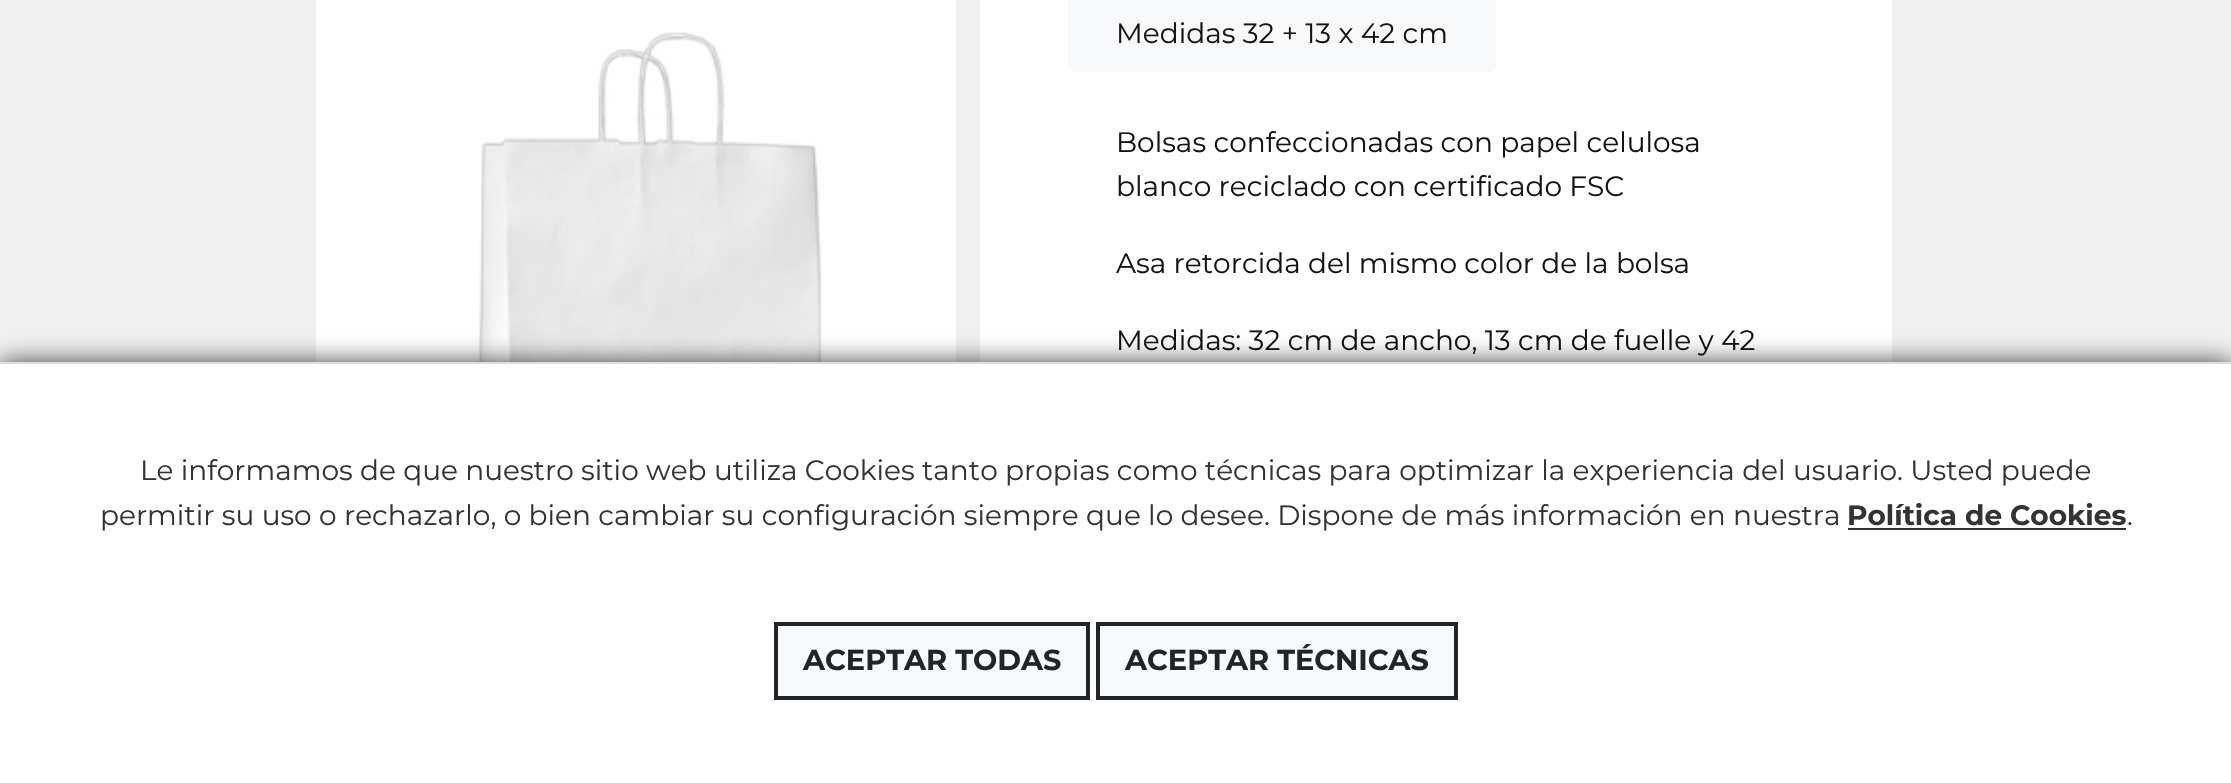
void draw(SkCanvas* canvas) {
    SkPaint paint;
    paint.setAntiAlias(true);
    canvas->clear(0xFFF1F1F1);
    paint.setColor(0xFFFFFFFF);
    canvas->drawRect(SkRect::MakeXYWH(316, 0, 640, 362), paint);
    canvas->drawImageRect(SkImages::DeferredFromEncodedData(SkData::MakeFromFileName("img1.png")), SkRect::MakeXYWH(478, 32, 344, 330), SkSamplingOptions());
    canvas->drawRect(SkRect::MakeXYWH(980, 0, 912, 362), paint);
    paint.setColor(0xFFF8F9FA);
    canvas->drawRoundRect(SkRect::MakeXYWH(1068, -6, 428, 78), 8, 8, paint);
    SkFont font1(fontMgr->matchFamilyStyle("Montserrat", SkFontStyle::Normal()), 28);
    font1.setSubpixel(true);
    paint.setColor(0xFF131313);
    canvas->drawString("Medidas 32 + 13 x 42 cm", 1116, 43, font1, paint);
    canvas->drawString("Bolsas confeccionadas con papel celulosa", 1116, 152, font1, paint);
    canvas->drawString("blanco reciclado con certificado FSC", 1116, 196, font1, paint);
    canvas->drawString("Asa retorcida del mismo color de la bolsa", 1116, 273, font1, paint);
    canvas->drawString("Medidas: 32 cm de ancho, 13 cm de fuelle y 42", 1116, 350, font1, paint);
    paint.setColor(0xBF000000);
    paint.setMaskFilter(SkMaskFilter::MakeBlur(kNormal_SkBlurStyle, 12));
    canvas->drawRect(SkRect::MakeXYWH(0, 362, 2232, 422), paint);
    paint.setMaskFilter(nullptr);
    paint.setColor(0xFFFFFFFF);
    canvas->drawRect(SkRect::MakeXYWH(0, 364, 2231, 419), paint);
    paint.setColor(0xFFDDDDDD);
    canvas->drawRect(SkRect::MakeXYWH(0, 362, 2231, 2), paint);
    paint.setColor(0xFF333333);
    canvas->drawString("Le informamos de que nuestro sitio web utiliza Cookies tanto propias como técnicas para optimizar la experiencia del usuario. Usted puede", 140, 480, font1, paint);
    canvas->drawString("permitir su uso o rechazarlo, o bien cambiar su configuración siempre que lo desee. Dispone de más información en nuestra", 100, 525, font1, paint);
    SkFont font2(fontMgr->matchFamilyStyle("Montserrat", SkFontStyle::Bold()), 28);
    font2.setSubpixel(true);
    canvas->drawString("Política de Cookies", 1847, 525, font2, paint);
    canvas->drawRect(SkRect::MakeXYWH(1848, 528, 278, 2), paint);
    canvas->drawString(".", 2127, 525, font1, paint);
    paint.setColor(0xFFF8F9FA);
    canvas->drawRect(SkRect::MakeXYWH(776, 624, 312, 74), paint);
    paint.setStyle(SkPaint::kStroke_Style);
    paint.setStrokeWidth(4);
    paint.setColor(0xFF212529);
    canvas->drawRect(SkRect::MakeXYWH(776, 624, 312, 74), paint);
    SkFont font3(fontMgr->matchFamilyStyle("Montserrat", SkFontStyle::Bold()), 28.75f);
    font3.setSubpixel(true);
    paint.setStyle(SkPaint::kFill_Style);
    canvas->drawString("ACEPTAR TODAS", 803, 670, font3, paint);
    paint.setColor(0xFFF8F9FA);
    canvas->drawRect(SkRect::MakeXYWH(1098, 624, 358, 74), paint);
    paint.setStyle(SkPaint::kStroke_Style);
    paint.setColor(0xFF212529);
    canvas->drawRect(SkRect::MakeXYWH(1098, 624, 358, 74), paint);
    paint.setStyle(SkPaint::kFill_Style);
    canvas->drawString("ACEPTAR TÉCNICAS", 1125, 670, font3, paint);
}
